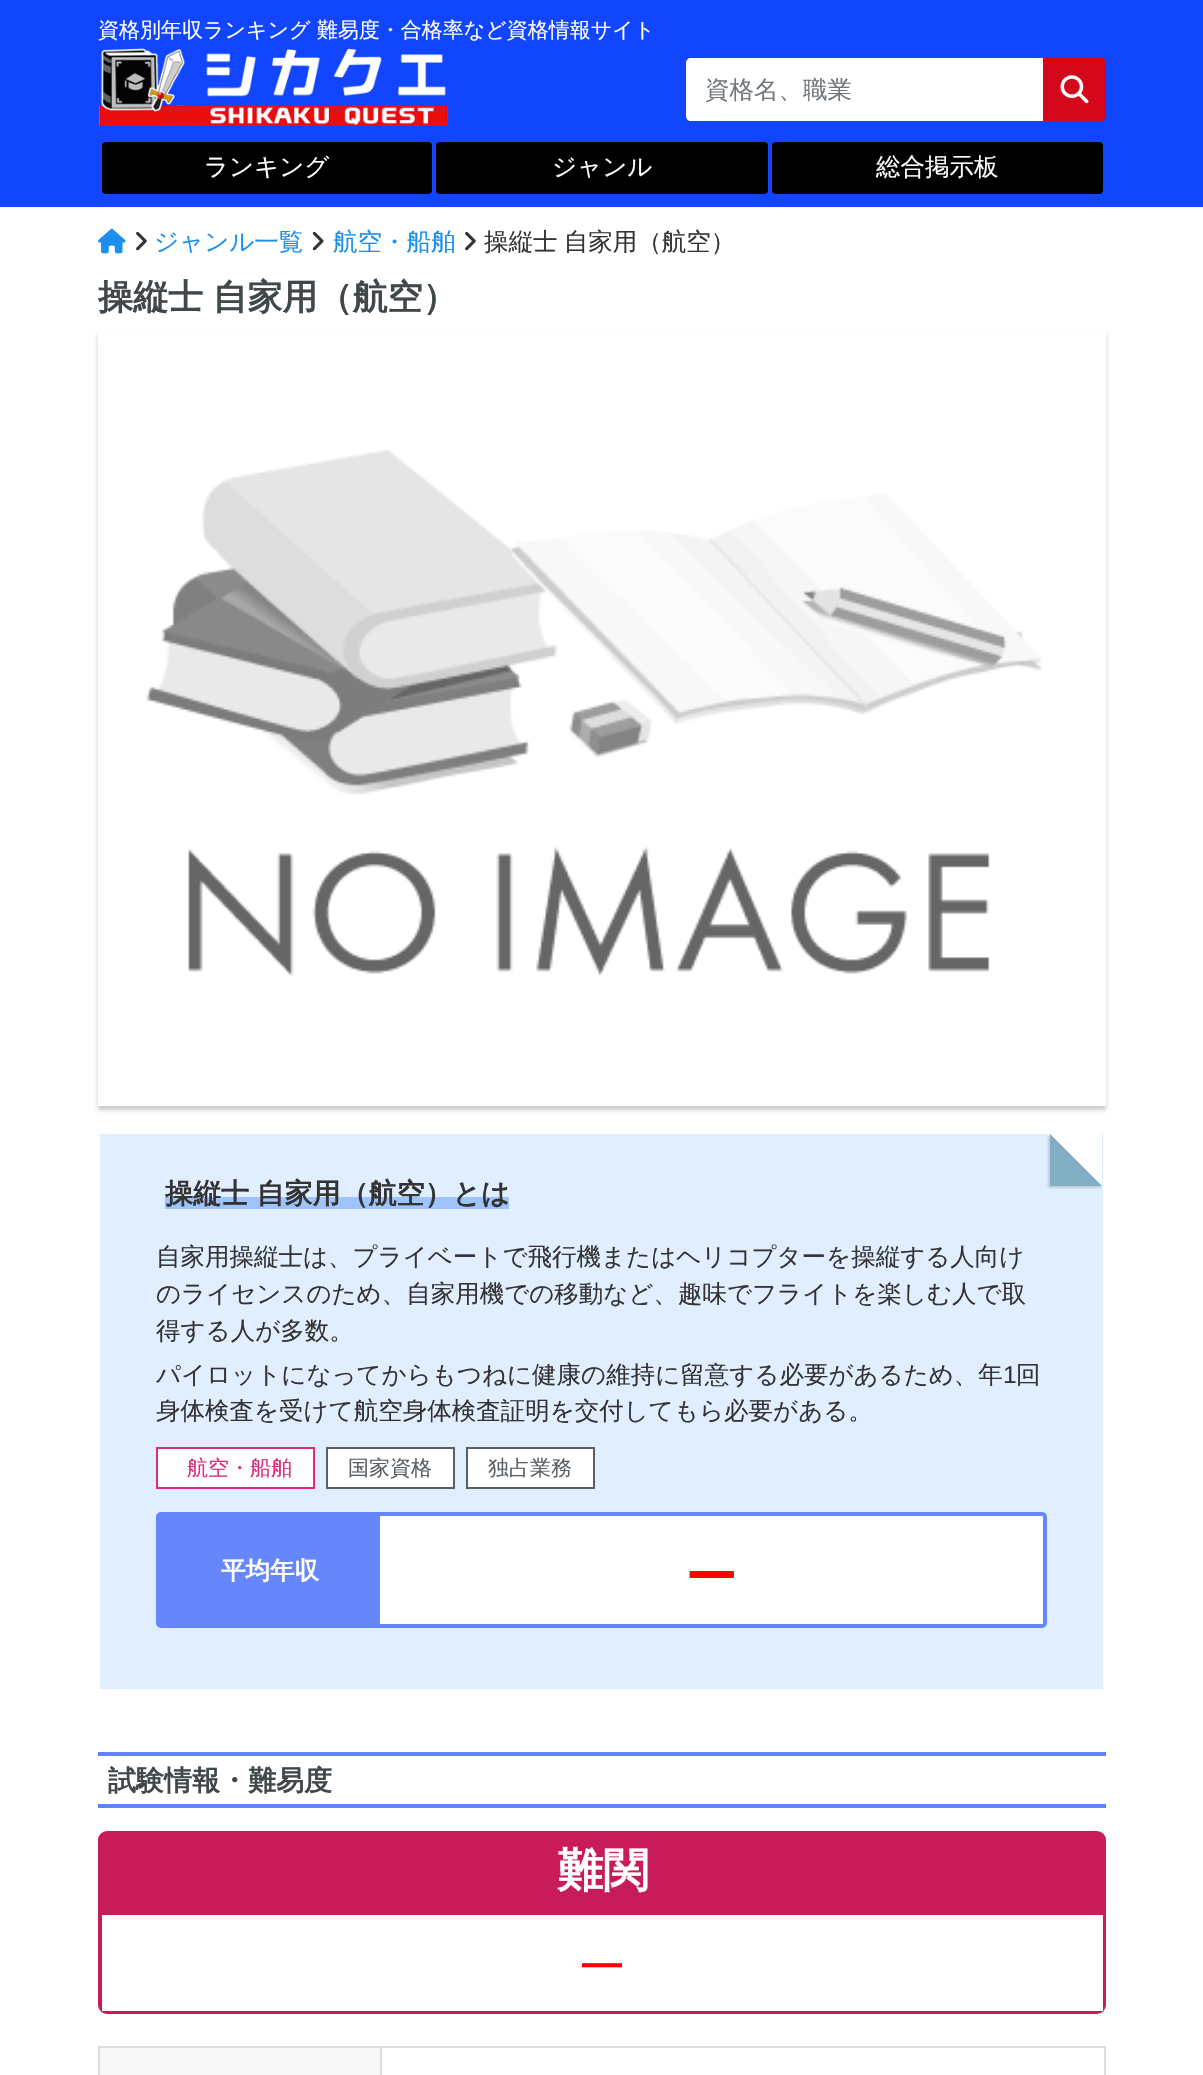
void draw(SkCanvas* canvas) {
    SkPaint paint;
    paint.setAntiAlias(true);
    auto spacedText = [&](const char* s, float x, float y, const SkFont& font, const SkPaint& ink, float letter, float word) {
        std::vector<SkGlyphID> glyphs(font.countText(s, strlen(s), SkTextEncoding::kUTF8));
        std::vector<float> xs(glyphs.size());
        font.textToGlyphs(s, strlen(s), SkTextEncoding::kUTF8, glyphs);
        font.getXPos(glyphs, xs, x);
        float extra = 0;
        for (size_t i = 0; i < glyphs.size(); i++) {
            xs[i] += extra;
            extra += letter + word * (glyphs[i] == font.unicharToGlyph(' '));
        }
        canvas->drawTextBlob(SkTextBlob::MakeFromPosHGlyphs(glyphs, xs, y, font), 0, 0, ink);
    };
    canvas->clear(0xFFFFFFFF);
    paint.setColor(0xFF1245FF);
    canvas->drawRect(SkRect::MakeXYWH(0, 0, 1203, 207), paint);
    SkFont font1(fontMgr->matchFamilyStyle("WenQuanYi Zen Hei", SkFontStyle(500, SkFontStyle::kNormal_Width, SkFontStyle::kUpright_Slant)), 21);
    font1.setSubpixel(true);
    paint.setColor(0xFFFFFFFF);
    canvas->drawString("資格別年収ランキング 難易度・合格率など資格情報サイト", 98, 37, font1, paint);
    canvas->drawImageRect(SkImages::DeferredFromEncodedData(SkData::MakeFromFileName("img1.png")), SkRect::MakeXYWH(98, 48, 350, 78), SkSamplingOptions());
    canvas->drawPath(SkPathBuilder().moveTo(691, 58).lineTo(1043, 58).lineTo(1043, 121).lineTo(691, 121).cubicTo(688, 121, 686, 119, 686, 116).lineTo(686, 63).cubicTo(686, 60, 688, 58, 691, 58).close().detach(), paint);
    SkFont font2(fontMgr->matchFamilyStyle("WenQuanYi Zen Hei", SkFontStyle(500, SkFontStyle::kNormal_Width, SkFontStyle::kUpright_Slant)), 24.5f);
    font2.setSubpixel(true);
    paint.setColor(0xFF70787D);
    canvas->drawString("資格名、職業", 705, 98, font2, paint);
    paint.setColor(0xFFD5071A);
    canvas->drawPath(SkPathBuilder().moveTo(1043, 58).lineTo(1101, 58).cubicTo(1104, 58, 1106, 60, 1106, 63).lineTo(1106, 116).cubicTo(1106, 119, 1104, 121, 1101, 121).lineTo(1043, 121).close().detach(), paint);
    canvas->drawImageRect(SkImages::DeferredFromEncodedData(SkData::MakeFromFileName("img2.png")), SkRect::MakeXYWH(1060, 75, 29, 29), SkSamplingOptions());
    paint.setColor(0xFF000000);
    canvas->drawRoundRect(SkRect::MakeXYWH(102, 142, 330, 52), 4, 4, paint);
    paint.setColor(0xFFFFFFFF);
    canvas->drawString("ランキング", 204, 175, font2, paint);
    paint.setColor(0xFF000000);
    canvas->drawRoundRect(SkRect::MakeXYWH(436, 142, 332, 52), 4, 4, paint);
    paint.setColor(0xFFFFFFFF);
    canvas->drawString("ジャンル", 552, 175, font2, paint);
    paint.setColor(0xFF000000);
    canvas->drawRoundRect(SkRect::MakeXYWH(772, 142, 331, 52), 4, 4, paint);
    paint.setColor(0xFFFFFFFF);
    canvas->drawString("総合掲示板", 876, 175, font2, paint);
    canvas->drawImageRect(SkImages::DeferredFromEncodedData(SkData::MakeFromFileName("img3.png")), SkRect::MakeXYWH(98, 228, 28, 26), SkSamplingOptions());
    canvas->drawImageRect(SkImages::DeferredFromEncodedData(SkData::MakeFromFileName("img4.png")), SkRect::MakeXYWH(136, 231, 11, 20), SkSamplingOptions());
    paint.setColor(0xFF1B8FEB);
    canvas->drawString("ジャンル一覧", 154, 250, font2, paint);
    canvas->drawImageRect(SkImages::DeferredFromEncodedData(SkData::MakeFromFileName("img5.png")), SkRect::MakeXYWH(312, 231, 12, 20), SkSamplingOptions());
    canvas->drawString("航空・船舶", 333, 250, font2, paint);
    canvas->drawImageRect(SkImages::DeferredFromEncodedData(SkData::MakeFromFileName("img4.png")), SkRect::MakeXYWH(465, 231, 11, 20), SkSamplingOptions());
    paint.setColor(0xFF333333);
    spacedText("操縦士 自家用（航空）", 484, 250, font2, paint, 0, -1);
    SkFont font3(fontMgr->matchFamilyStyle("WenQuanYi Zen Hei", SkFontStyle::Bold()), 35);
    font3.setSubpixel(true);
    paint.setColor(0xFF40484C);
    spacedText("操縦士 自家用（航空）", 98, 309, font3, paint, 0, -1);
    canvas->save();
    canvas->clipPath(SkPathBuilder(SkPathFillType::kEvenOdd).moveTo(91, 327).lineTo(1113, 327).lineTo(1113, 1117).lineTo(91, 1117).close().moveTo(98, 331).lineTo(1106, 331).lineTo(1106, 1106).lineTo(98, 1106).close().detach(), true);
    paint.setColor(0x33000000);
    paint.setMaskFilter(SkMaskFilter::MakeBlur(kNormal_SkBlurStyle, 2));
    canvas->drawRect(SkRect::MakeXYWH(98, 334, 1008, 776), paint);
    paint.setMaskFilter(nullptr);
    canvas->restore();
    canvas->drawImageRect(SkImages::DeferredFromEncodedData(SkData::MakeFromFileName("img6.png")), SkRect::MakeXYWH(146, 450, 896, 526), SkSamplingOptions());
    paint.setColor(0xFFE0EEFF);
    canvas->drawRect(SkRect::MakeXYWH(100, 1134, 1003, 555), paint);
    paint.setColor(0xFF9DC4FD);
    canvas->drawRect(SkRect::MakeXYWH(165, 1197, 344, 12), paint);
    SkFont font4(fontMgr->matchFamilyStyle("WenQuanYi Zen Hei", SkFontStyle::Bold()), 28);
    font4.setSubpixel(true);
    paint.setColor(0xFF333333);
    spacedText("操縦士 自家用（航空）とは", 165, 1203, font4, paint, 0, -1);
    paint.setColor(0x26000000);
    paint.setMaskFilter(SkMaskFilter::MakeBlur(kNormal_SkBlurStyle, 1));
    canvas->drawRect(SkRect::MakeXYWH(1048, 1136, 53, 52), paint);
    paint.setMaskFilter(nullptr);
    paint.setColor(0xFFFFFFFF);
    canvas->drawPath(SkPathBuilder().moveTo(1102, 1134).lineTo(1102, 1186).lineTo(1050, 1134).close().detach(), paint);
    paint.setColor(0xFF82ADC3);
    canvas->drawPath(SkPathBuilder().moveTo(1102, 1186).lineTo(1050, 1186).lineTo(1050, 1134).close().detach(), paint);
    paint.setColor(0xFF333333);
    canvas->drawString("自家用操縦士は、プライベートで飛行機またはヘリコプターを操縦する人向け", 156, 1265, font2, paint);
    canvas->drawString("のライセンスのため、自家用機での移動など、趣味でフライトを楽しむ人で取", 156, 1302, font2, paint);
    canvas->drawString("得する人が多数。", 156, 1339, font2, paint);
    canvas->drawString("パイロットになってからもつねに健康の維持に留意する必要があるため、年", 156, 1383, font2, paint);
    SkFont font5(fontMgr->matchFamilyStyle("Liberation Sans", SkFontStyle::Normal()), 24.5f);
    font5.setSubpixel(true);
    canvas->drawString("1", 1003, 1383, font5, paint);
    canvas->drawString("回", 1016, 1383, font2, paint);
    canvas->drawString("身体検査を受けて航空身体検査証明を交付してもら必要がある。", 156, 1419, font2, paint);
    paint.setColor(0xFFFFFFFF);
    canvas->drawRect(SkRect::MakeXYWH(157, 1448, 157, 40), paint);
    paint.setStyle(SkPaint::kStroke_Style);
    paint.setStrokeWidth(2);
    paint.setColor(0xFFDC2A7C);
    canvas->drawRect(SkRect::MakeXYWH(157, 1448, 157, 40), paint);
    paint.setStyle(SkPaint::kFill_Style);
    canvas->drawString("航空・船舶", 187, 1475, font1, paint);
    paint.setColor(0xFFFFFFFF);
    canvas->drawRect(SkRect::MakeXYWH(327, 1448, 127, 40), paint);
    paint.setStyle(SkPaint::kStroke_Style);
    paint.setColor(0xFF585F64);
    canvas->drawRect(SkRect::MakeXYWH(327, 1448, 127, 40), paint);
    paint.setStyle(SkPaint::kFill_Style);
    canvas->drawString("国家資格", 348, 1475, font1, paint);
    paint.setColor(0xFFFFFFFF);
    canvas->drawRect(SkRect::MakeXYWH(467, 1448, 127, 40), paint);
    paint.setStyle(SkPaint::kStroke_Style);
    paint.setColor(0xFF585F64);
    canvas->drawRect(SkRect::MakeXYWH(467, 1448, 127, 40), paint);
    paint.setStyle(SkPaint::kFill_Style);
    canvas->drawString("独占業務", 488, 1475, font1, paint);
    paint.setColor(0xFFFFFFFF);
    canvas->drawRoundRect(SkRect::MakeXYWH(158, 1514, 887, 112), 3, 3, paint);
    paint.setStyle(SkPaint::kStroke_Style);
    paint.setStrokeWidth(4);
    paint.setColor(0xFF6686FB);
    canvas->drawRoundRect(SkRect::MakeXYWH(158, 1514, 887, 112), 3, 3, paint);
    paint.setStyle(SkPaint::kFill_Style);
    canvas->drawRect(SkRect::MakeXYWH(160, 1516, 220, 108), paint);
    SkFont font6(fontMgr->matchFamilyStyle("WenQuanYi Zen Hei", SkFontStyle::Bold()), 24.5f);
    font6.setSubpixel(true);
    paint.setColor(0xFFFFFFFF);
    canvas->drawString("平均年収", 221, 1579, font6, paint);
    SkFont font7(fontMgr->matchFamilyStyle("WenQuanYi Zen Hei", SkFontStyle::Bold()), 52);
    font7.setSubpixel(true);
    paint.setColor(0xFFFF0000);
    canvas->drawString("ー", 685, 1595, font7, paint);
    paint.setColor(0xFF6183FF);
    canvas->drawRect(SkRect::MakeXYWH(98, 1752, 1008, 4), paint);
    canvas->drawRect(SkRect::MakeXYWH(98, 1804, 1008, 4), paint);
    paint.setColor(0xFF40484C);
    canvas->drawString("試験情報・難易度", 108, 1790, font4, paint);
    paint.setColor(0xFFC71B5A);
    canvas->drawRoundRect(SkRect::MakeXYWH(98, 1831, 1008, 183), 9, 9, paint);
    SkFont font8(fontMgr->matchFamilyStyle("WenQuanYi Zen Hei", SkFontStyle::Bold()), 46);
    font8.setSubpixel(true);
    paint.setColor(0xFFFFFFFF);
    canvas->drawString("難関", 557, 1886, font8, paint);
    canvas->drawRect(SkRect::MakeXYWH(102, 1915, 1001, 96), paint);
    SkFont font9(fontMgr->matchFamilyStyle("Liberation Sans", SkFontStyle::Bold()), 40);
    font9.setSubpixel(true);
    paint.setColor(0xFFFF0000);
    canvas->drawString("―", 582, 1976, font9, paint);
    paint.setColor(0xFFF8F8F8);
    canvas->drawRect(SkRect::MakeXYWH(100, 2048, 280, 27), paint);
    paint.setColor(0xFFDDDDDD);
    canvas->drawRect(SkRect::MakeXYWH(380, 2046, 726, 2), paint);
    canvas->drawRect(SkRect::MakeXYWH(380, 2046, 2, 29), paint);
    canvas->drawRect(SkRect::MakeXYWH(98, 2046, 284, 2), paint);
    canvas->drawRect(SkRect::MakeXYWH(98, 2046, 2, 29), paint);
    canvas->drawRect(SkRect::MakeXYWH(1104, 2046, 2, 29), paint);
}
